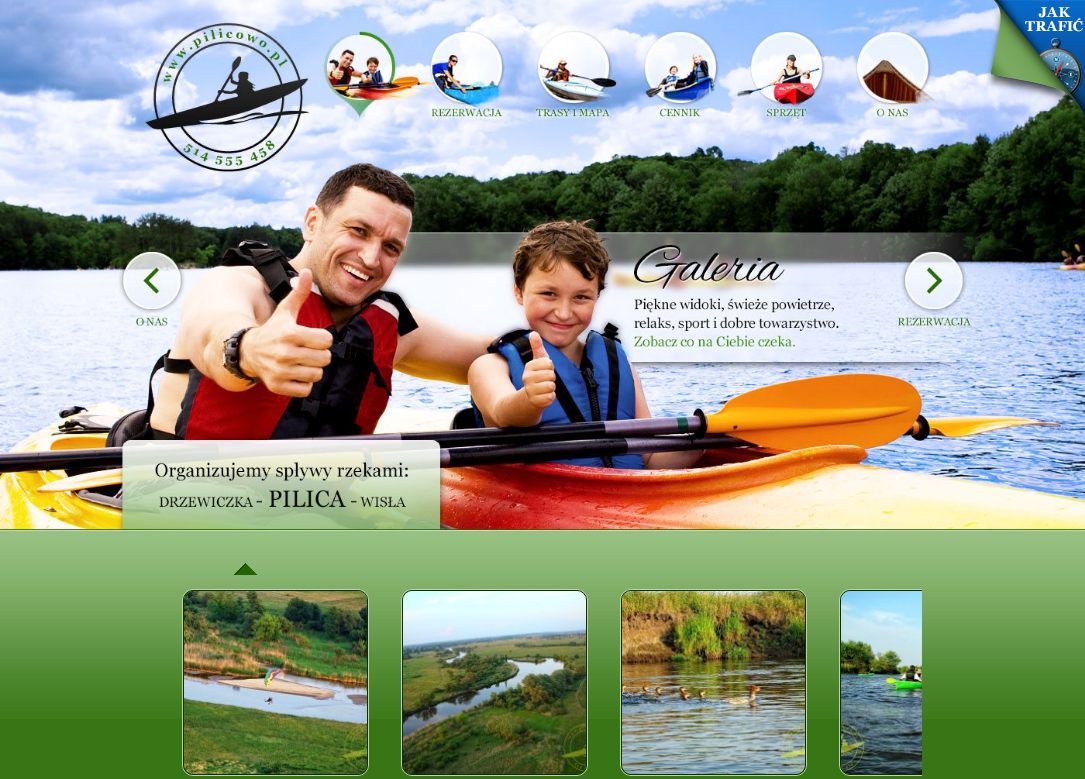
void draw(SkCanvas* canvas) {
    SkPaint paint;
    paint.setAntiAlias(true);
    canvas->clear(0xFF387615);
    canvas->drawImageRect(SkImages::DeferredFromEncodedData(SkData::MakeFromFileName("img1.png")), SkRect::MakeXYWH(0, 0, 1085, 719), SkSamplingOptions());
    canvas->drawImageRect(SkImages::DeferredFromEncodedData(SkData::MakeFromFileName("img2.png")), SkRect::MakeXYWH(234, 563, 23, 12), SkSamplingOptions());
    paint.setStyle(SkPaint::kStroke_Style);
    paint.setStrokeWidth(1);
    paint.setColor(0xFFBCD4AE);
    canvas->drawRoundRect(SkRect::MakeXYWH(182.5f, 589.5f, 186, 186), 10.5f, 10.5f, paint);
    canvas->drawRoundRect(SkRect::MakeXYWH(401.5f, 589.5f, 186, 186), 10.5f, 10.5f, paint);
    canvas->drawRoundRect(SkRect::MakeXYWH(620.5f, 589.5f, 186, 186), 10.5f, 10.5f, paint);
    canvas->save();
    canvas->clipRect(SkRect::MakeXYWH(163, 585, 759, 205));
    canvas->drawRoundRect(SkRect::MakeXYWH(839.5f, 589.5f, 186, 186), 10.5f, 10.5f, paint);
    canvas->restore();
    paint.setColor(0xFF102D00);
    canvas->drawRoundRect(SkRect::MakeXYWH(183.5f, 590.5f, 184, 184), 9.5f, 9.5f, paint);
    canvas->drawRoundRect(SkRect::MakeXYWH(402.5f, 590.5f, 184, 184), 9.5f, 9.5f, paint);
    canvas->drawRoundRect(SkRect::MakeXYWH(621.5f, 590.5f, 184, 184), 9.5f, 9.5f, paint);
    canvas->save();
    canvas->clipRect(SkRect::MakeXYWH(163, 585, 759, 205));
    canvas->drawRoundRect(SkRect::MakeXYWH(840.5f, 590.5f, 184, 184), 9.5f, 9.5f, paint);
    canvas->restore();
    canvas->drawImageRect(SkImages::DeferredFromEncodedData(SkData::MakeFromFileName("img3.png")), SkRect::MakeXYWH(184, 591, 183, 183), SkSamplingOptions());
    canvas->drawImageRect(SkImages::DeferredFromEncodedData(SkData::MakeFromFileName("img4.png")), SkRect::MakeXYWH(403, 591, 183, 183), SkSamplingOptions());
    canvas->drawImageRect(SkImages::DeferredFromEncodedData(SkData::MakeFromFileName("img5.png")), SkRect::MakeXYWH(622, 591, 183, 183), SkSamplingOptions());
    canvas->drawImageRect(SkImages::DeferredFromEncodedData(SkData::MakeFromFileName("img6.png")), SkRect::MakeXYWH(841, 591, 81, 183), SkSamplingOptions());
    canvas->drawImageRect(SkImages::DeferredFromEncodedData(SkData::MakeFromFileName("img7.png")), SkRect::MakeXYWH(986, 0, 99, 118), SkSamplingOptions());
}
